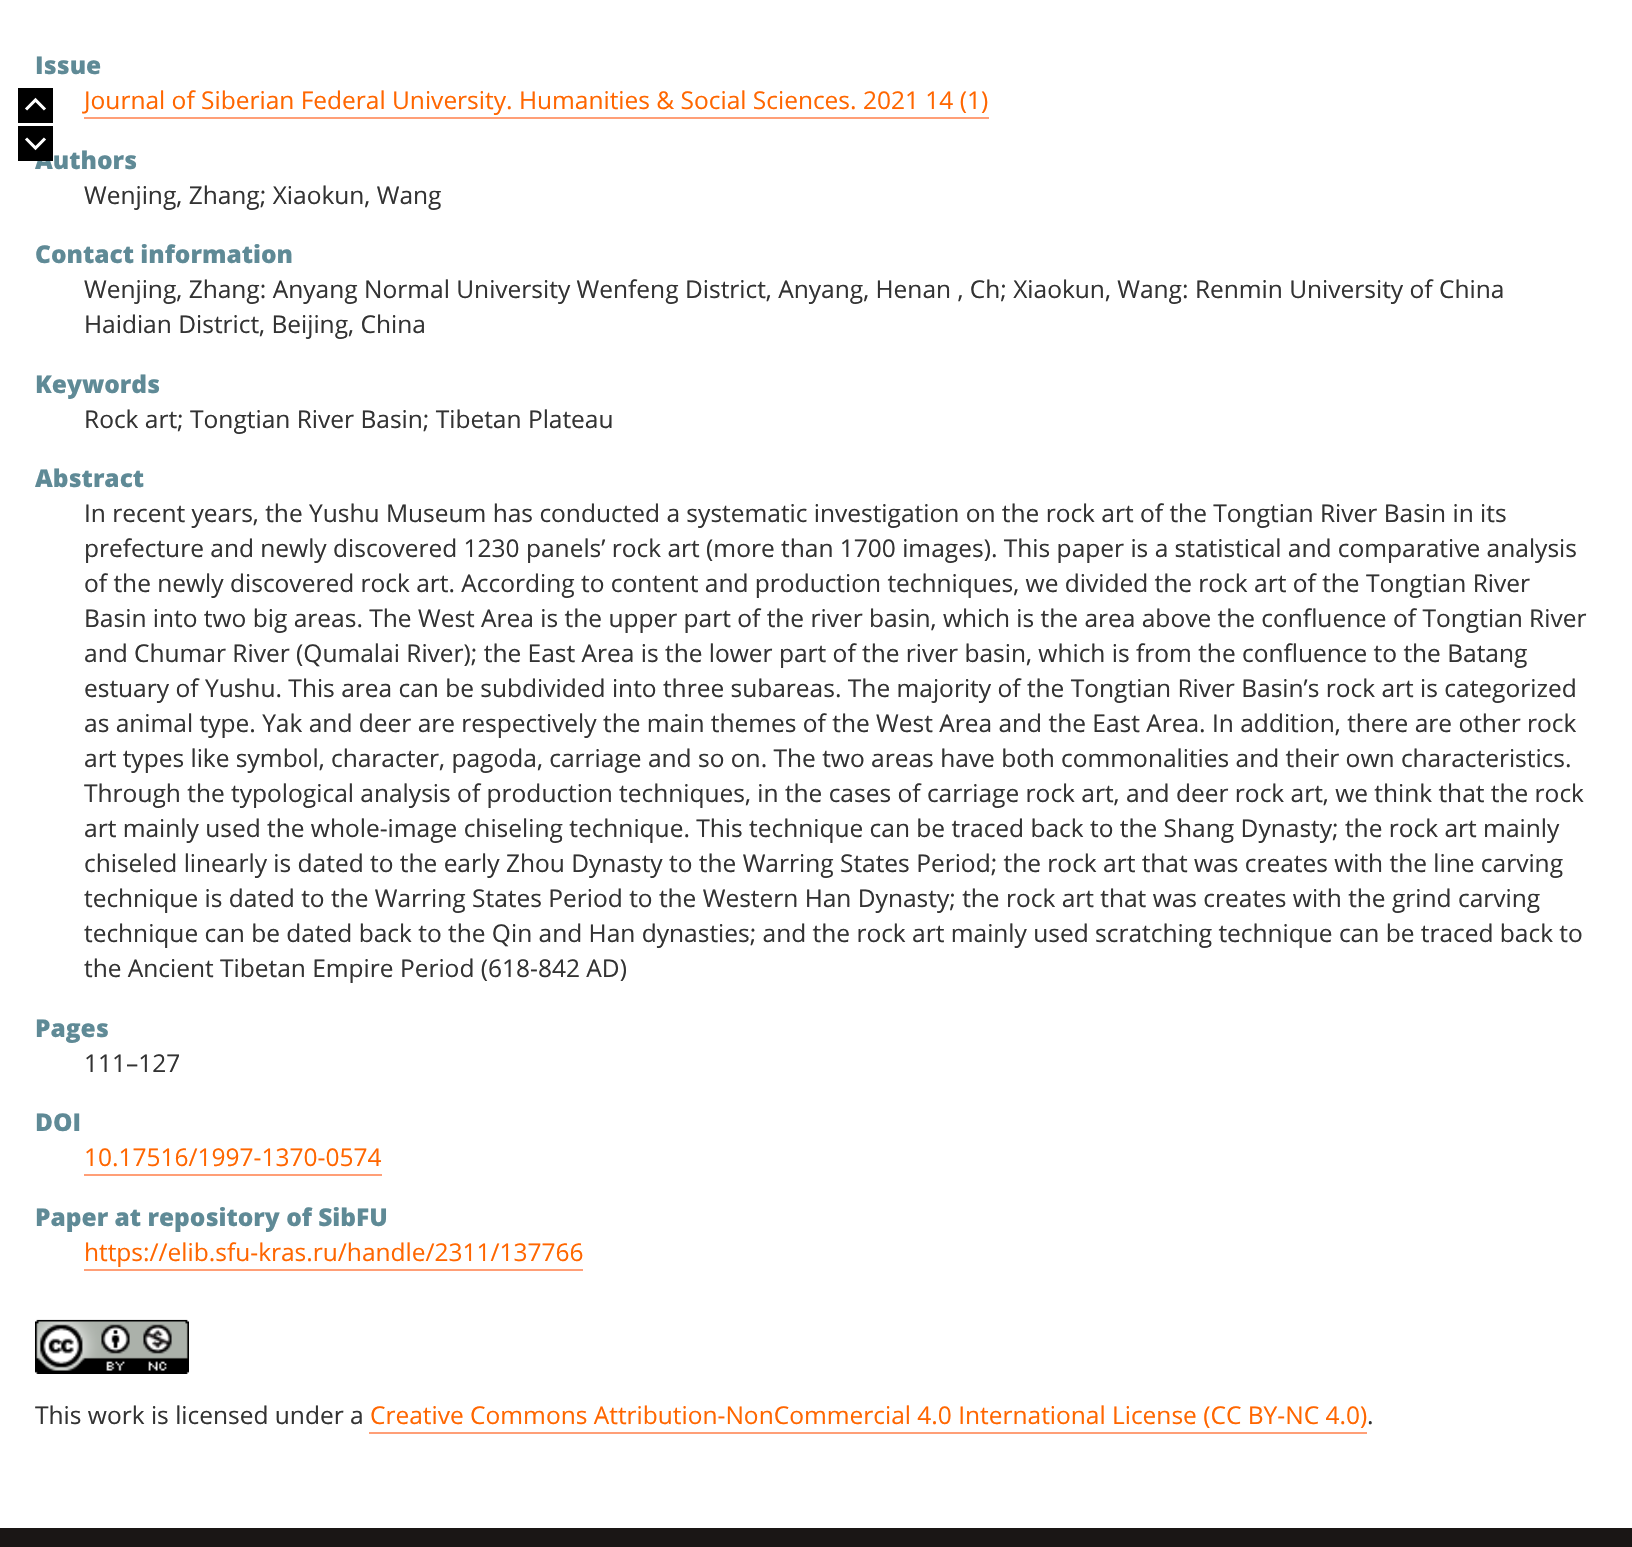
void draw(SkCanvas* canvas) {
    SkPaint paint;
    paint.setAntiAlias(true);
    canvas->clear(0xFFFFFFFF);
    SkFont font1(fontMgr->matchFamilyStyle("Open Sans", SkFontStyle(800, SkFontStyle::kNormal_Width, SkFontStyle::kUpright_Slant)), 24.5f);
    font1.setSubpixel(true);
    paint.setColor(0xFF5F8A96);
    canvas->drawString("Issue", 35, 74, font1, paint);
    SkFont font2(fontMgr->matchFamilyStyle("Open Sans", SkFontStyle::Normal()), 24.5f);
    font2.setSubpixel(true);
    paint.setColor(0xFFFF6600);
    canvas->drawString("Journal of Siberian Federal University. Humanities & Social Sciences. 2021 14 (1)", 84, 109, font2, paint);
    paint.setColor(0xFFFF9F77);
    canvas->drawRect(SkRect::MakeXYWH(84, 117, 905, 2), paint);
    paint.setColor(0xFF5F8A96);
    canvas->drawString("Authors", 35, 169, font1, paint);
    paint.setColor(0xFF333333);
    canvas->drawString("Wenjing, Zhang; Xiaokun, Wang", 84, 204, font2, paint);
    paint.setColor(0xFF5F8A96);
    canvas->drawString("Contact information", 35, 263, font1, paint);
    paint.setColor(0xFF333333);
    canvas->drawString("Wenjing, Zhang: Anyang Normal University Wenfeng District, Anyang, Henan , Ch; Xiaokun, Wang: Renmin University of China", 84, 298, font2, paint);
    canvas->drawString("Haidian District, Beijing, China", 84, 333, font2, paint);
    paint.setColor(0xFF5F8A96);
    canvas->drawString("Keywords", 35, 393, font1, paint);
    paint.setColor(0xFF333333);
    canvas->drawString("Rock art; Tongtian River Basin; Tibetan Plateau", 84, 428, font2, paint);
    paint.setColor(0xFF5F8A96);
    canvas->drawString("Abstract", 35, 487, font1, paint);
    paint.setColor(0xFF333333);
    canvas->drawString("In recent years, the Yushu Museum has conducted a systematic investigation on the rock art of the Tongtian River Basin in its", 84, 522, font2, paint);
    canvas->drawString("prefecture and newly discovered 1230 panels’ rock art (more than 1700 images). This paper is a statistical and comparative analysis", 84, 557, font2, paint);
    canvas->drawString("of the newly discovered rock art. According to content and production techniques, we divided the rock art of the Tongtian River", 84, 592, font2, paint);
    canvas->drawString("Basin into two big areas. The West Area is the upper part of the river basin, which is the area above the confluence of Tongtian River", 84, 627, font2, paint);
    canvas->drawString("and Chumar River (Qumalai River); the East Area is the lower part of the river basin, which is from the confluence to the Batang", 84, 662, font2, paint);
    canvas->drawString("estuary of Yushu. This area can be subdivided into three subareas. The majority of the Tongtian River Basin’s rock art is categorized", 84, 697, font2, paint);
    canvas->drawString("as animal type. Yak and deer are respectively the main themes of the West Area and the East Area. In addition, there are other rock", 84, 732, font2, paint);
    canvas->drawString("art types like symbol, character, pagoda, carriage and so on. The two areas have both commonalities and their own characteristics.", 84, 767, font2, paint);
    canvas->drawString("Through the typological analysis of production techniques, in the cases of carriage rock art, and deer rock art, we think that the rock", 84, 802, font2, paint);
    canvas->drawString("art mainly used the whole-image chiseling technique. This technique can be traced back to the Shang Dynasty; the rock art mainly", 84, 837, font2, paint);
    canvas->drawString("chiseled linearly is dated to the early Zhou Dynasty to the Warring States Period; the rock art that was creates with the line carving", 84, 872, font2, paint);
    canvas->drawString("technique is dated to the Warring States Period to the Western Han Dynasty; the rock art that was creates with the grind carving", 84, 907, font2, paint);
    canvas->drawString("technique can be dated back to the Qin and Han dynasties; and the rock art mainly used scratching technique can be traced back to", 84, 942, font2, paint);
    canvas->drawString("the Ancient Tibetan Empire Period (618-842 AD)", 84, 977, font2, paint);
    paint.setColor(0xFF5F8A96);
    canvas->drawString("Pages", 35, 1037, font1, paint);
    paint.setColor(0xFF333333);
    canvas->drawString("111–127", 84, 1072, font2, paint);
    paint.setColor(0xFF5F8A96);
    canvas->drawString("DOI", 35, 1131, font1, paint);
    paint.setColor(0xFFFF6600);
    canvas->drawString("10.17516/1997-1370-0574", 84, 1166, font2, paint);
    paint.setColor(0xFFFF9F77);
    canvas->drawRect(SkRect::MakeXYWH(84, 1174, 298, 2), paint);
    paint.setColor(0xFF5F8A96);
    canvas->drawString("Paper at repository of SibFU", 35, 1226, font1, paint);
    paint.setColor(0xFFFF6600);
    canvas->drawString("https://elib.sfu-kras.ru/handle/2311/137766", 84, 1261, font2, paint);
    paint.setColor(0xFFFF9F77);
    canvas->drawRect(SkRect::MakeXYWH(84, 1269, 499, 2), paint);
    canvas->drawImageRect(SkImages::DeferredFromEncodedData(SkData::MakeFromFileName("img1.png")), SkRect::MakeXYWH(35, 1319, 154, 55), SkSamplingOptions());
    paint.setColor(0xFF333333);
    canvas->drawString("This work is licensed under a", 35, 1424, font2, paint);
    paint.setColor(0xFFFF6600);
    canvas->drawString("Creative Commons Attribution-NonCommercial 4.0 International License (CC BY-NC 4.0)", 370, 1424, font2, paint);
    paint.setColor(0xFFFF9F77);
    canvas->drawRect(SkRect::MakeXYWH(369, 1432, 998, 2), paint);
    paint.setColor(0xFF333333);
    canvas->drawString(".", 1367, 1424, font2, paint);
    paint.setColor(0xFF000000);
    canvas->drawRect(SkRect::MakeXYWH(18, 88, 35, 35), paint);
    paint.setStyle(SkPaint::kStroke_Style);
    paint.setStrokeWidth(3.1f);
    paint.setColor(0xFFFFFFFF);
    canvas->drawPath(SkPathBuilder().moveTo(26, 109.5f).lineTo(35.5f, 100).lineTo(45, 109.5f).detach(), paint);
    paint.setStyle(SkPaint::kFill_Style);
    paint.setColor(0xFF000000);
    canvas->drawRect(SkRect::MakeXYWH(18, 126, 35, 35), paint);
    paint.setStyle(SkPaint::kStroke_Style);
    paint.setColor(0xFFFFFFFF);
    canvas->drawPath(SkPathBuilder().moveTo(26, 138.5f).lineTo(35.5f, 148).lineTo(45, 138.5f).detach(), paint);
    paint.setStyle(SkPaint::kFill_Style);
    paint.setColor(0xFF1A1615);
    canvas->drawRect(SkRect::MakeXYWH(0, 1528, 1632, 19), paint);
}
